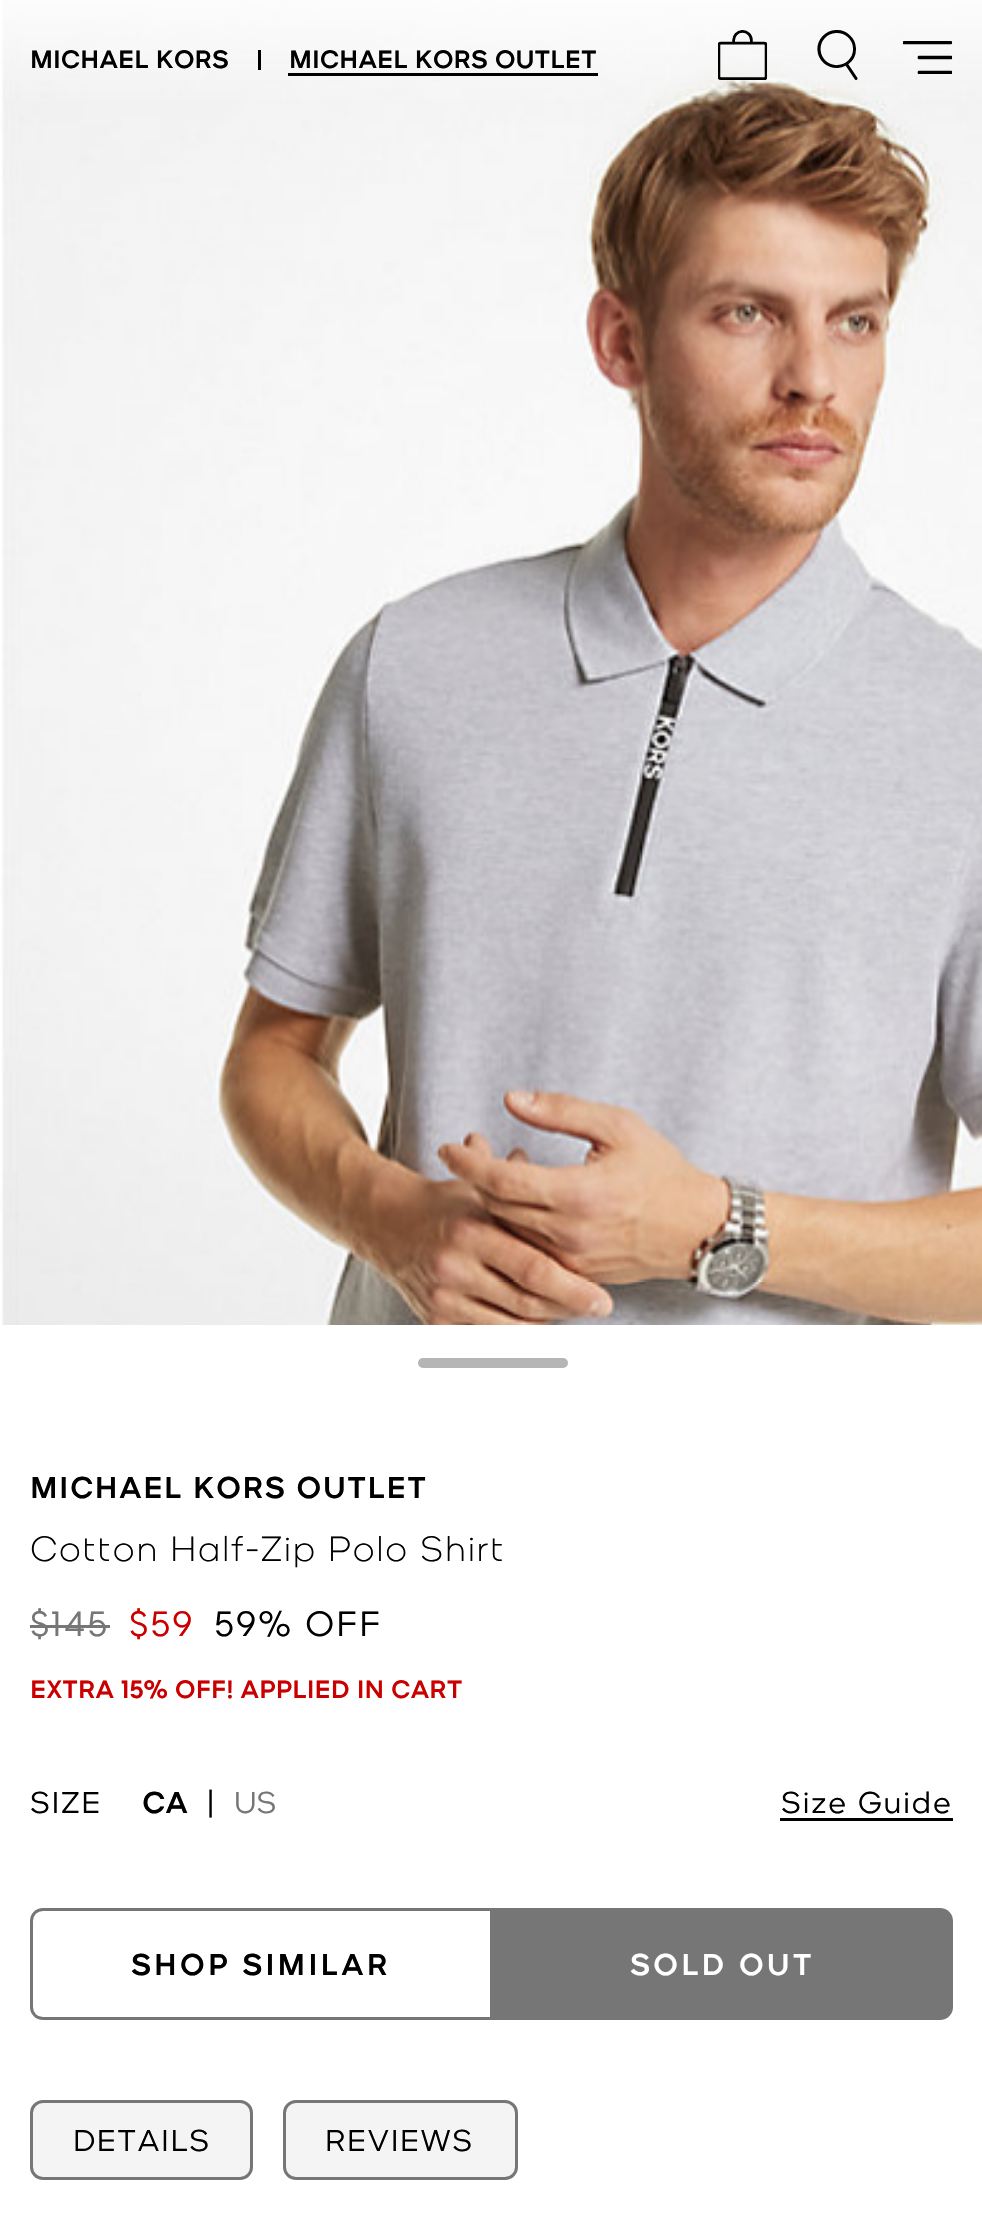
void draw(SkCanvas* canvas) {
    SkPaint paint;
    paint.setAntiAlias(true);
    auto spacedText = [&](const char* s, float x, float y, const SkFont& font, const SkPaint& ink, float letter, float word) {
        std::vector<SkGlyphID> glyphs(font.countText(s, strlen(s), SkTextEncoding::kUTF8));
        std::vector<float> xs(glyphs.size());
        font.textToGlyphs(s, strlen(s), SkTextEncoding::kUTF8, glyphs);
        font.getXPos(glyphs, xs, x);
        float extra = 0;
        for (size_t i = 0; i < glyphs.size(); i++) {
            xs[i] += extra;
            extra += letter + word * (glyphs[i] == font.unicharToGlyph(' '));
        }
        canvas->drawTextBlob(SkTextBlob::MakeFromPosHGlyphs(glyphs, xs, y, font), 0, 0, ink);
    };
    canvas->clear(0xFFFFFFFF);
    canvas->drawImageRect(SkImages::DeferredFromEncodedData(SkData::MakeFromFileName("img4.png")), SkRect::MakeXYWH(0, 0, 982, 1325), SkSamplingOptions());
    SkFont font1(fontMgr->matchFamilyStyle("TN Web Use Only", SkFontStyle(500, SkFontStyle::kNormal_Width, SkFontStyle::kUpright_Slant)), 25);
    font1.setSubpixel(true);
    paint.setColor(0xFF000000);
    canvas->drawString("MICHAEL KORS", 30, 68, font1, paint);
    canvas->drawRect(SkRect::MakeXYWH(258, 50, 3, 20), paint);
    canvas->drawString("MICHAEL KORS OUTLET", 289, 68, font1, paint);
    canvas->drawRect(SkRect::MakeXYWH(288, 73, 310, 3), paint);
    canvas->drawImageRect(SkImages::DeferredFromEncodedData(SkData::MakeFromFileName("img1.png")), SkRect::MakeXYWH(718, 30, 50, 50), SkSamplingOptions());
    canvas->drawImageRect(SkImages::DeferredFromEncodedData(SkData::MakeFromFileName("img2.png")), SkRect::MakeXYWH(817, 30, 41, 50), SkSamplingOptions());
    canvas->drawImageRect(SkImages::DeferredFromEncodedData(SkData::MakeFromFileName("img3.png")), SkRect::MakeXYWH(903, 41, 50, 33), SkSamplingOptions());
    paint.setColor(0xFFB5B5B5);
    canvas->drawRoundRect(SkRect::MakeXYWH(418, 1358, 150, 10), 5, 5, paint);
    SkFont font2(fontMgr->matchFamilyStyle("TN Web Use Only", SkFontStyle(500, SkFontStyle::kNormal_Width, SkFontStyle::kUpright_Slant)), 30);
    font2.setSubpixel(true);
    paint.setColor(0xFF000000);
    spacedText("MICHAEL KORS OUTLET", 30, 1498, font2, paint, 1.5f, 0);
    SkFont font3(fontMgr->matchFamilyStyle("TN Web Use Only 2", SkFontStyle(300, SkFontStyle::kNormal_Width, SkFontStyle::kUpright_Slant)), 35);
    font3.setSubpixel(true);
    spacedText("Cotton Half-Zip Polo Shirt", 30, 1561, font3, paint, 1.5f, 0);
    SkFont font4(fontMgr->matchFamilyStyle("TN Web Use Only", SkFontStyle(300, SkFontStyle::kNormal_Width, SkFontStyle::kUpright_Slant)), 35);
    font4.setSubpixel(true);
    paint.setColor(0xFF767676);
    spacedText("$145", 30, 1636, font4, paint, 2, 0);
    canvas->drawRect(SkRect::MakeXYWH(30, 1625, 80, 3), paint);
    paint.setColor(0xFFCA0000);
    spacedText("$59", 129, 1636, font4, paint, 2, 0);
    paint.setColor(0xFF000000);
    spacedText("59% OFF", 214, 1636, font4, paint, 2, 0);
    paint.setColor(0xFFCA0000);
    canvas->drawString("EXTRA 15% OFF! APPLIED IN CART", 30, 1698, font1, paint);
    SkFont font5(fontMgr->matchFamilyStyle("TN Web Use Only", SkFontStyle(300, SkFontStyle::kNormal_Width, SkFontStyle::kUpright_Slant)), 30);
    font5.setSubpixel(true);
    paint.setColor(0xFF000000);
    spacedText("SIZE", 30, 1813, font5, paint, 1.5f, 0);
    canvas->drawString("CA", 142, 1813, font2, paint);
    spacedText("|", 208, 1813, font5, paint, 1.5f, 0);
    paint.setColor(0xFF767676);
    canvas->drawString("US", 234, 1813, font5, paint);
    paint.setColor(0xFF000000);
    spacedText("Size Guide", 781, 1813, font5, paint, 1.5f, 0);
    canvas->drawRect(SkRect::MakeXYWH(780, 1818, 173, 3), paint);
    paint.setStyle(SkPaint::kStroke_Style);
    paint.setStrokeWidth(3);
    paint.setColor(0xFF767676);
    canvas->drawPath(SkPathBuilder().moveTo(43, 1909.5f).lineTo(491.5f, 1909.5f).lineTo(491.5f, 2018.5f).lineTo(43, 2018.5f).cubicTo(36.5f, 2018.5f, 31.5f, 2013.5f, 31.5f, 2007).lineTo(31.5f, 1921).cubicTo(31.5f, 1914.5f, 36.5f, 1909.5f, 43, 1909.5f).close().detach(), paint);
    paint.setStyle(SkPaint::kFill_Style);
    paint.setColor(0xFF000000);
    spacedText("SHOP SIMILAR", 131, 1975, font2, paint, 3, 0);
    paint.setColor(0xFF767676);
    canvas->drawPath(SkPathBuilder().moveTo(494.5f, 1909.5f).lineTo(940, 1909.5f).cubicTo(946.5f, 1909.5f, 951.5f, 1914.5f, 951.5f, 1921).lineTo(951.5f, 2007).cubicTo(951.5f, 2013.5f, 946.5f, 2018.5f, 940, 2018.5f).lineTo(494.5f, 2018.5f).close().detach(), paint);
    paint.setStyle(SkPaint::kStroke_Style);
    canvas->drawPath(SkPathBuilder().moveTo(494.5f, 1909.5f).lineTo(940, 1909.5f).cubicTo(946.5f, 1909.5f, 951.5f, 1914.5f, 951.5f, 1921).lineTo(951.5f, 2007).cubicTo(951.5f, 2013.5f, 946.5f, 2018.5f, 940, 2018.5f).lineTo(494.5f, 2018.5f).close().detach(), paint);
    paint.setStyle(SkPaint::kFill_Style);
    paint.setColor(0xFFFFFFFF);
    spacedText("SOLD OUT", 630, 1975, font2, paint, 3, 0);
    paint.setColor(0xFFF4F4F4);
    canvas->drawRoundRect(SkRect::MakeXYWH(31.5f, 2101.5f, 220, 77), 11.5f, 11.5f, paint);
    paint.setStyle(SkPaint::kStroke_Style);
    paint.setColor(0xFF767676);
    canvas->drawRoundRect(SkRect::MakeXYWH(31.5f, 2101.5f, 220, 77), 11.5f, 11.5f, paint);
    paint.setStyle(SkPaint::kFill_Style);
    paint.setColor(0xFF000000);
    spacedText("DETAILS", 73, 2151, font5, paint, 1.5f, 0);
    paint.setColor(0xFFF4F4F4);
    canvas->drawRoundRect(SkRect::MakeXYWH(284.5f, 2101.5f, 232, 77), 11.5f, 11.5f, paint);
    paint.setStyle(SkPaint::kStroke_Style);
    paint.setColor(0xFF767676);
    canvas->drawRoundRect(SkRect::MakeXYWH(284.5f, 2101.5f, 232, 77), 11.5f, 11.5f, paint);
    paint.setStyle(SkPaint::kFill_Style);
    paint.setColor(0xFF000000);
    spacedText("REVIEWS", 325, 2151, font5, paint, 1.5f, 0);
}
